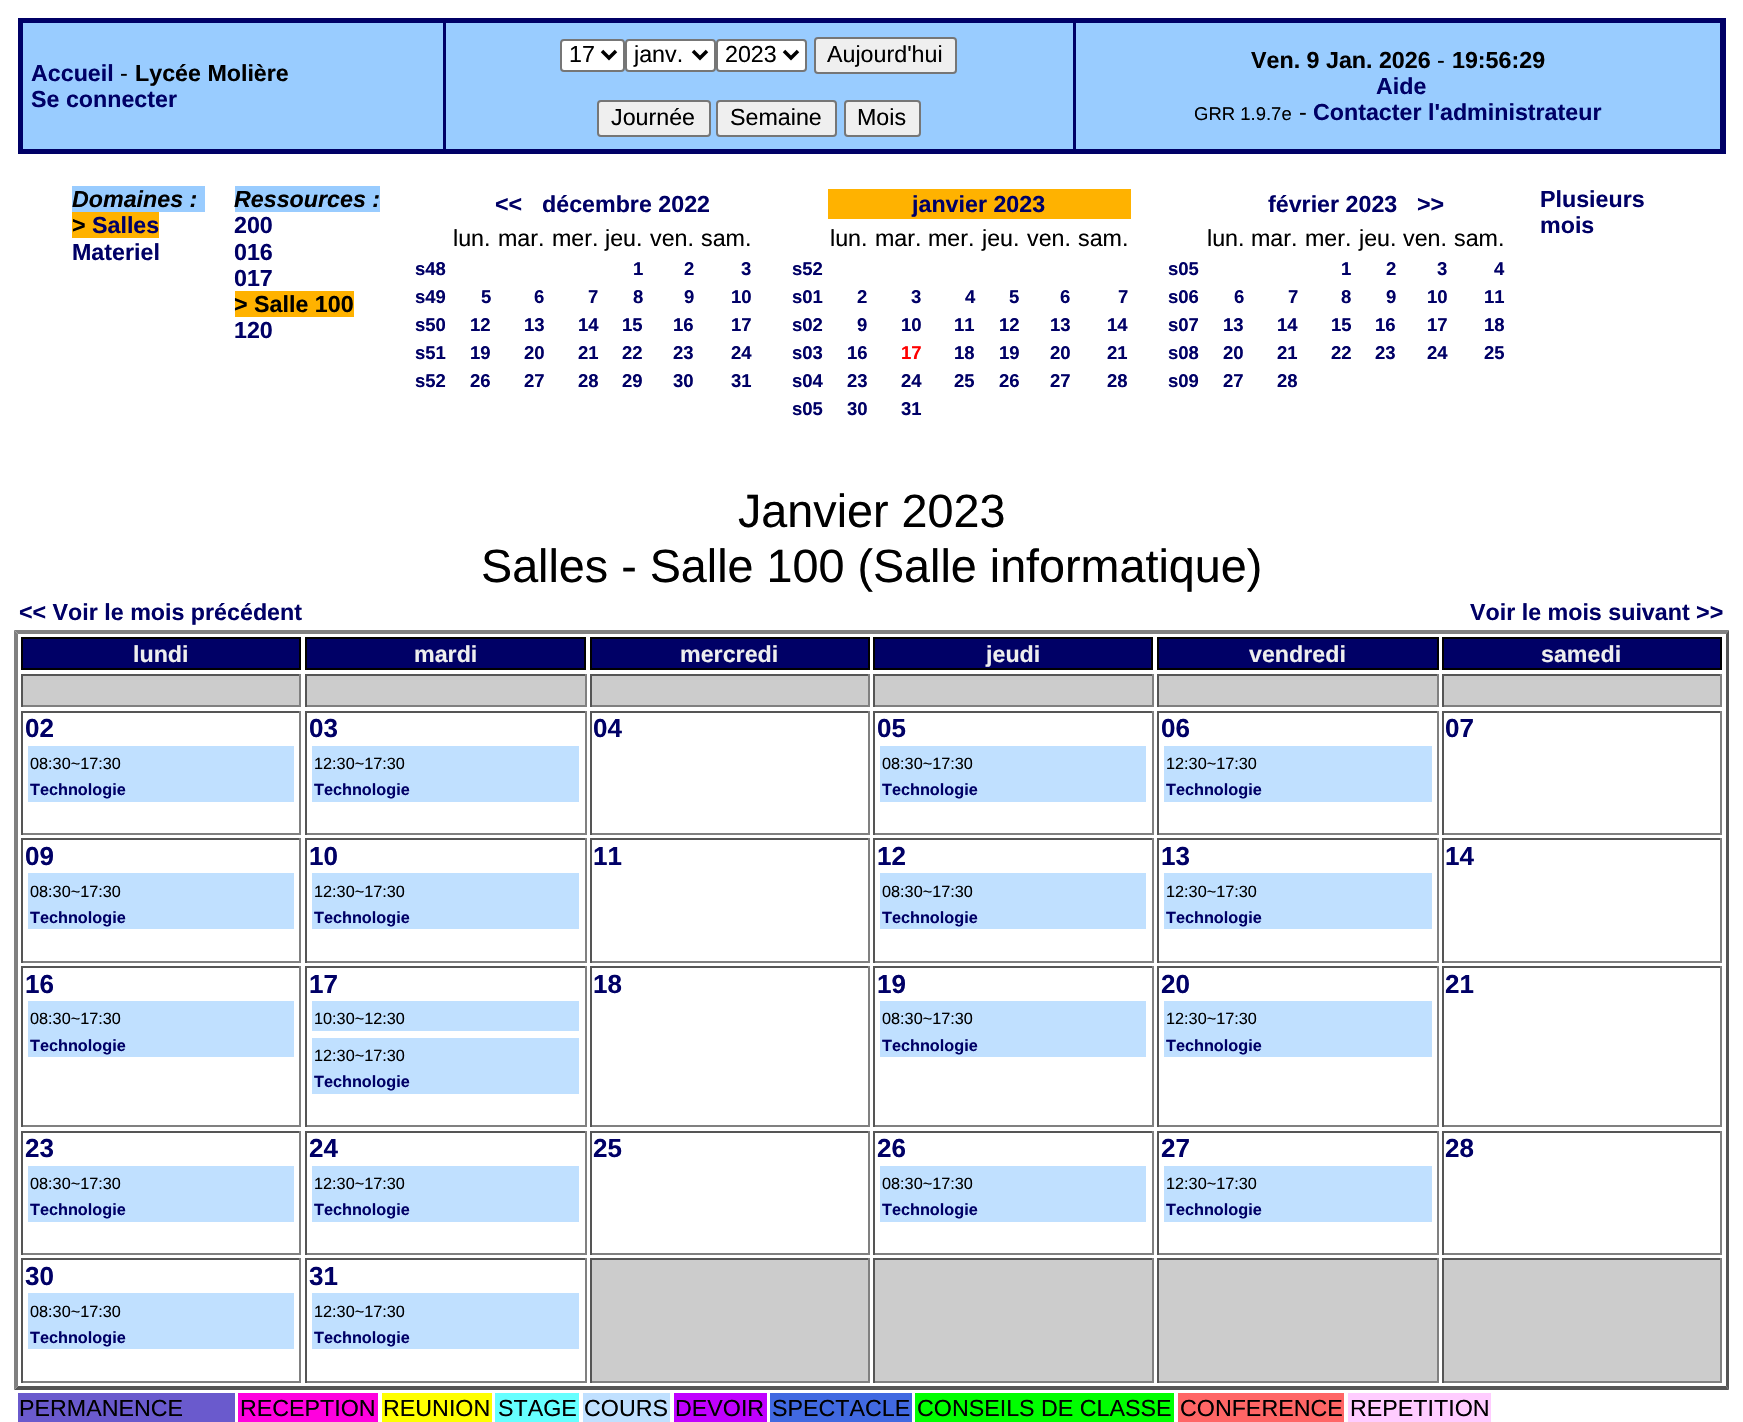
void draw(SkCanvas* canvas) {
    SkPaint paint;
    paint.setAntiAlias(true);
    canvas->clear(0xFFFFFFFF);
    paint.setColor(0xFF000066);
    canvas->drawRect(SkRect::MakeXYWH(18, 18, 1708, 136), paint);
    paint.setColor(0xFF99CCFF);
    canvas->drawRect(SkRect::MakeXYWH(23, 23, 420, 126), paint);
    SkFont font1(fontMgr->matchFamilyStyle("Liberation Sans", SkFontStyle::Bold()), 23.25f);
    font1.setSubpixel(true);
    paint.setColor(0xFF000066);
    canvas->drawString("Accueil", 31, 81, font1, paint);
    SkFont font2(fontMgr->matchFamilyStyle("Liberation Sans", SkFontStyle::Normal()), 23.25f);
    font2.setSubpixel(true);
    paint.setColor(0xFF000000);
    canvas->drawString("-", 120, 81, font2, paint);
    canvas->drawString("Lycée Molière", 135, 81, font1, paint);
    paint.setColor(0xFF000066);
    canvas->drawString("Se connecter", 31, 107, font1, paint);
    paint.setColor(0xFF99CCFF);
    canvas->drawRect(SkRect::MakeXYWH(446, 23, 627, 126), paint);
    paint.setColor(0xFFFFFFFF);
    canvas->drawRoundRect(SkRect::MakeXYWH(561, 40, 63, 31), 3, 3, paint);
    paint.setStyle(SkPaint::kStroke_Style);
    paint.setStrokeWidth(2);
    paint.setColor(0xFF767676);
    canvas->drawRoundRect(SkRect::MakeXYWH(561, 40, 63, 31), 3, 3, paint);
    paint.setStrokeWidth(3.5f);
    paint.setColor(0xFF000000);
    canvas->drawPath(SkPathBuilder().moveTo(602, 51).lineTo(609, 58).lineTo(616, 51).detach(), paint);
    paint.setStyle(SkPaint::kFill_Style);
    canvas->drawString("17", 569, 62, font2, paint);
    paint.setColor(0xFFFFFFFF);
    canvas->drawRoundRect(SkRect::MakeXYWH(626, 40, 89, 31), 3, 3, paint);
    paint.setStyle(SkPaint::kStroke_Style);
    paint.setStrokeWidth(2);
    paint.setColor(0xFF767676);
    canvas->drawRoundRect(SkRect::MakeXYWH(626, 40, 89, 31), 3, 3, paint);
    paint.setStrokeWidth(3.5f);
    paint.setColor(0xFF000000);
    canvas->drawPath(SkPathBuilder().moveTo(693, 51).lineTo(700, 58).lineTo(707, 51).detach(), paint);
    paint.setStyle(SkPaint::kFill_Style);
    canvas->drawString("janv.", 634, 62, font2, paint);
    paint.setColor(0xFFFFFFFF);
    canvas->drawRoundRect(SkRect::MakeXYWH(717, 40, 89, 31), 3, 3, paint);
    paint.setStyle(SkPaint::kStroke_Style);
    paint.setStrokeWidth(2);
    paint.setColor(0xFF767676);
    canvas->drawRoundRect(SkRect::MakeXYWH(717, 40, 89, 31), 3, 3, paint);
    paint.setStrokeWidth(3.5f);
    paint.setColor(0xFF000000);
    canvas->drawPath(SkPathBuilder().moveTo(784, 51).lineTo(791, 58).lineTo(798, 51).detach(), paint);
    paint.setStyle(SkPaint::kFill_Style);
    canvas->drawString("2023", 725, 62, font2, paint);
    paint.setColor(0xFFEFEFEF);
    canvas->drawRoundRect(SkRect::MakeXYWH(815, 38, 141, 35), 3, 3, paint);
    paint.setStyle(SkPaint::kStroke_Style);
    paint.setStrokeWidth(2);
    paint.setColor(0xFF767676);
    canvas->drawRoundRect(SkRect::MakeXYWH(815, 38, 141, 35), 3, 3, paint);
    paint.setStyle(SkPaint::kFill_Style);
    paint.setColor(0xFF000000);
    canvas->drawString("Aujourd'hui", 827, 62, font2, paint);
    paint.setColor(0xFFEFEFEF);
    canvas->drawRoundRect(SkRect::MakeXYWH(598, 101, 112, 35), 3, 3, paint);
    paint.setStyle(SkPaint::kStroke_Style);
    paint.setColor(0xFF767676);
    canvas->drawRoundRect(SkRect::MakeXYWH(598, 101, 112, 35), 3, 3, paint);
    paint.setStyle(SkPaint::kFill_Style);
    paint.setColor(0xFF000000);
    canvas->drawString("Journée", 611, 125, font2, paint);
    paint.setColor(0xFFEFEFEF);
    canvas->drawRoundRect(SkRect::MakeXYWH(717, 101, 119, 35), 3, 3, paint);
    paint.setStyle(SkPaint::kStroke_Style);
    paint.setColor(0xFF767676);
    canvas->drawRoundRect(SkRect::MakeXYWH(717, 101, 119, 35), 3, 3, paint);
    paint.setStyle(SkPaint::kFill_Style);
    paint.setColor(0xFF000000);
    canvas->drawString("Semaine", 730, 125, font2, paint);
    paint.setColor(0xFFEFEFEF);
    canvas->drawRoundRect(SkRect::MakeXYWH(845, 101, 75, 35), 3, 3, paint);
    paint.setStyle(SkPaint::kStroke_Style);
    paint.setColor(0xFF767676);
    canvas->drawRoundRect(SkRect::MakeXYWH(845, 101, 75, 35), 3, 3, paint);
    paint.setStyle(SkPaint::kFill_Style);
    paint.setColor(0xFF000000);
    canvas->drawString("Mois", 857, 125, font2, paint);
    paint.setColor(0xFF99CCFF);
    canvas->drawRect(SkRect::MakeXYWH(1076, 23, 644, 126), paint);
    paint.setColor(0xFF000000);
    canvas->drawString("Ven. 9 Jan. 2026", 1251, 68, font1, paint);
    canvas->drawString("-", 1437, 68, font2, paint);
    canvas->drawString("19:56:29", 1452, 68, font1, paint);
    paint.setColor(0xFF000066);
    canvas->drawString("Aide", 1376, 94, font1, paint);
    SkFont font3(fontMgr->matchFamilyStyle("Liberation Sans", SkFontStyle::Normal()), 18.5f);
    font3.setSubpixel(true);
    paint.setColor(0xFF000000);
    canvas->drawString("GRR 1.9.7e", 1194, 120, font3, paint);
    canvas->drawString("-", 1299, 120, font2, paint);
    paint.setColor(0xFF000066);
    canvas->drawString("Contacter l'administrateur", 1313, 120, font1, paint);
    paint.setColor(0xFF99CCFF);
    canvas->drawRect(SkRect::MakeXYWH(72, 186, 133, 26), paint);
    SkFont font4(fontMgr->matchFamilyStyle("Liberation Sans", SkFontStyle::BoldItalic()), 23.25f);
    font4.setSubpixel(true);
    paint.setColor(0xFF000000);
    canvas->drawString("Domaines :", 72, 207, font4, paint);
    paint.setColor(0xFFFFB200);
    canvas->drawRect(SkRect::MakeXYWH(72, 212, 87, 26), paint);
    paint.setColor(0xFF000000);
    canvas->drawString(">", 72, 233, font1, paint);
    paint.setColor(0xFF000066);
    canvas->drawString("Salles", 92, 233, font1, paint);
    canvas->drawString("Materiel", 72, 260, font1, paint);
    paint.setColor(0xFF99CCFF);
    canvas->drawRect(SkRect::MakeXYWH(235, 186, 145, 26), paint);
    paint.setColor(0xFF000000);
    canvas->drawString("Ressources :", 234, 207, font4, paint);
    paint.setColor(0xFF000066);
    canvas->drawString("200", 234, 233, font1, paint);
    canvas->drawString("016", 234, 260, font1, paint);
    canvas->drawString("017", 234, 286, font1, paint);
    paint.setColor(0xFFFFB200);
    canvas->drawRect(SkRect::MakeXYWH(235, 291, 119, 26), paint);
    paint.setColor(0xFF000000);
    canvas->drawString("> Salle 100", 234, 312, font1, paint);
    paint.setColor(0xFF000066);
    canvas->drawString("120", 234, 338, font1, paint);
    canvas->drawString("<<", 495, 212, font1, paint);
    canvas->drawString("décembre 2022", 542, 212, font1, paint);
    paint.setColor(0xFF000000);
    canvas->drawString("lun.", 453, 246, font2, paint);
    canvas->drawString("mar.", 498, 246, font2, paint);
    canvas->drawString("mer.", 552, 246, font2, paint);
    canvas->drawString("jeu.", 605, 246, font2, paint);
    canvas->drawString("ven.", 650, 246, font2, paint);
    canvas->drawString("sam.", 701, 246, font2, paint);
    SkFont font5(fontMgr->matchFamilyStyle("Liberation Sans", SkFontStyle::Bold()), 18.5f);
    font5.setSubpixel(true);
    paint.setColor(0xFF000066);
    canvas->drawString("s48", 415, 275, font5, paint);
    canvas->drawString("1", 633, 275, font5, paint);
    canvas->drawString("2", 684, 275, font5, paint);
    canvas->drawString("3", 741, 275, font5, paint);
    canvas->drawString("s49", 415, 303, font5, paint);
    canvas->drawString("5", 481, 303, font5, paint);
    canvas->drawString("6", 534, 303, font5, paint);
    canvas->drawString("7", 588, 303, font5, paint);
    canvas->drawString("8", 633, 303, font5, paint);
    canvas->drawString("9", 684, 303, font5, paint);
    canvas->drawString("10", 731, 303, font5, paint);
    canvas->drawString("s50", 415, 331, font5, paint);
    canvas->drawString("12", 470, 331, font5, paint);
    canvas->drawString("13", 524, 331, font5, paint);
    canvas->drawString("14", 578, 331, font5, paint);
    canvas->drawString("15", 622, 331, font5, paint);
    canvas->drawString("16", 673, 331, font5, paint);
    canvas->drawString("17", 731, 331, font5, paint);
    canvas->drawString("s51", 415, 359, font5, paint);
    canvas->drawString("19", 470, 359, font5, paint);
    canvas->drawString("20", 524, 359, font5, paint);
    canvas->drawString("21", 578, 359, font5, paint);
    canvas->drawString("22", 622, 359, font5, paint);
    canvas->drawString("23", 673, 359, font5, paint);
    canvas->drawString("24", 731, 359, font5, paint);
    canvas->drawString("s52", 415, 387, font5, paint);
    canvas->drawString("26", 470, 387, font5, paint);
    canvas->drawString("27", 524, 387, font5, paint);
    canvas->drawString("28", 578, 387, font5, paint);
    canvas->drawString("29", 622, 387, font5, paint);
    canvas->drawString("30", 673, 387, font5, paint);
    canvas->drawString("31", 731, 387, font5, paint);
    paint.setColor(0xFFFFB200);
    canvas->drawRect(SkRect::MakeXYWH(828, 189, 303, 30), paint);
    paint.setColor(0xFF000066);
    canvas->drawString("janvier 2023", 912, 212, font1, paint);
    paint.setColor(0xFF000000);
    canvas->drawString("lun.", 830, 246, font2, paint);
    canvas->drawString("mar.", 875, 246, font2, paint);
    canvas->drawString("mer.", 928, 246, font2, paint);
    canvas->drawString("jeu.", 982, 246, font2, paint);
    canvas->drawString("ven.", 1027, 246, font2, paint);
    canvas->drawString("sam.", 1078, 246, font2, paint);
    paint.setColor(0xFF000066);
    canvas->drawString("s52", 792, 275, font5, paint);
    canvas->drawString("s01", 792, 303, font5, paint);
    canvas->drawString("2", 857, 303, font5, paint);
    canvas->drawString("3", 911, 303, font5, paint);
    canvas->drawString("4", 965, 303, font5, paint);
    canvas->drawString("5", 1009, 303, font5, paint);
    canvas->drawString("6", 1060, 303, font5, paint);
    canvas->drawString("7", 1118, 303, font5, paint);
    canvas->drawString("s02", 792, 331, font5, paint);
    canvas->drawString("9", 857, 331, font5, paint);
    canvas->drawString("10", 901, 331, font5, paint);
    canvas->drawString("11", 954, 331, font5, paint);
    canvas->drawString("12", 999, 331, font5, paint);
    canvas->drawString("13", 1050, 331, font5, paint);
    canvas->drawString("14", 1107, 331, font5, paint);
    canvas->drawString("s03", 792, 359, font5, paint);
    canvas->drawString("16", 847, 359, font5, paint);
    paint.setColor(0xFFFF0000);
    canvas->drawString("17", 901, 359, font5, paint);
    paint.setColor(0xFF000066);
    canvas->drawString("18", 954, 359, font5, paint);
    canvas->drawString("19", 999, 359, font5, paint);
    canvas->drawString("20", 1050, 359, font5, paint);
    canvas->drawString("21", 1107, 359, font5, paint);
    canvas->drawString("s04", 792, 387, font5, paint);
    canvas->drawString("23", 847, 387, font5, paint);
    canvas->drawString("24", 901, 387, font5, paint);
    canvas->drawString("25", 954, 387, font5, paint);
    canvas->drawString("26", 999, 387, font5, paint);
    canvas->drawString("27", 1050, 387, font5, paint);
    canvas->drawString("28", 1107, 387, font5, paint);
    canvas->drawString("s05", 792, 415, font5, paint);
    canvas->drawString("30", 847, 415, font5, paint);
    canvas->drawString("31", 901, 415, font5, paint);
    canvas->drawString("février 2023", 1268, 212, font1, paint);
    canvas->drawString(">>", 1417, 212, font1, paint);
    paint.setColor(0xFF000000);
    canvas->drawString("lun.", 1207, 246, font2, paint);
    canvas->drawString("mar.", 1251, 246, font2, paint);
    canvas->drawString("mer.", 1305, 246, font2, paint);
    canvas->drawString("jeu.", 1359, 246, font2, paint);
    canvas->drawString("ven.", 1403, 246, font2, paint);
    canvas->drawString("sam.", 1454, 246, font2, paint);
    paint.setColor(0xFF000066);
    canvas->drawString("s05", 1168, 275, font5, paint);
    canvas->drawString("1", 1341, 275, font5, paint);
    canvas->drawString("2", 1386, 275, font5, paint);
    canvas->drawString("3", 1437, 275, font5, paint);
    canvas->drawString("4", 1494, 275, font5, paint);
    canvas->drawString("s06", 1168, 303, font5, paint);
    canvas->drawString("6", 1234, 303, font5, paint);
    canvas->drawString("7", 1288, 303, font5, paint);
    canvas->drawString("8", 1341, 303, font5, paint);
    canvas->drawString("9", 1386, 303, font5, paint);
    canvas->drawString("10", 1427, 303, font5, paint);
    canvas->drawString("11", 1484, 303, font5, paint);
    canvas->drawString("s07", 1168, 331, font5, paint);
    canvas->drawString("13", 1223, 331, font5, paint);
    canvas->drawString("14", 1277, 331, font5, paint);
    canvas->drawString("15", 1331, 331, font5, paint);
    canvas->drawString("16", 1375, 331, font5, paint);
    canvas->drawString("17", 1427, 331, font5, paint);
    canvas->drawString("18", 1484, 331, font5, paint);
    canvas->drawString("s08", 1168, 359, font5, paint);
    canvas->drawString("20", 1223, 359, font5, paint);
    canvas->drawString("21", 1277, 359, font5, paint);
    canvas->drawString("22", 1331, 359, font5, paint);
    canvas->drawString("23", 1375, 359, font5, paint);
    canvas->drawString("24", 1427, 359, font5, paint);
    canvas->drawString("25", 1484, 359, font5, paint);
    canvas->drawString("s09", 1168, 387, font5, paint);
    canvas->drawString("27", 1223, 387, font5, paint);
    canvas->drawString("28", 1277, 387, font5, paint);
    canvas->drawString("Plusieurs", 1540, 207, font1, paint);
    canvas->drawString("mois", 1540, 233, font1, paint);
    SkFont font6(fontMgr->matchFamilyStyle("Liberation Sans", SkFontStyle::Normal()), 46.7f);
    font6.setSubpixel(true);
    paint.setColor(0xFF000000);
    canvas->drawString("Janvier 2023", 738, 527, font6, paint);
    canvas->drawString("Salles - Salle 100 (Salle informatique)", 481, 582, font6, paint);
    paint.setColor(0xFF000066);
    canvas->drawString("<< Voir le mois précédent", 19, 620, font1, paint);
    canvas->drawString("Voir le mois suivant >>", 1470, 620, font1, paint);
    paint.setColor(0xFF808080);
    canvas->drawPath(SkPathBuilder().moveTo(14, 630).lineTo(1729, 630).lineTo(1726, 634).lineTo(18, 634).close().detach(), paint);
    paint.setColor(0xFF555555);
    canvas->drawPath(SkPathBuilder().moveTo(1729, 630).lineTo(1729, 1390).lineTo(1726, 1386).lineTo(1726, 634).close().detach(), paint);
    canvas->drawPath(SkPathBuilder().moveTo(1729, 1390).lineTo(14, 1390).lineTo(18, 1386).lineTo(1726, 1386).close().detach(), paint);
    paint.setColor(0xFF808080);
    canvas->drawPath(SkPathBuilder().moveTo(14, 1390).lineTo(14, 630).lineTo(18, 634).lineTo(18, 1386).close().detach(), paint);
    paint.setColor(0xFF000066);
    canvas->drawRect(SkRect::MakeXYWH(22, 638, 278, 31), paint);
    paint.setStyle(SkPaint::kStroke_Style);
    paint.setColor(0xFF000000);
    canvas->drawRect(SkRect::MakeXYWH(22, 638, 278, 31), paint);
    paint.setStyle(SkPaint::kFill_Style);
    paint.setColor(0xFFEEEEEE);
    canvas->drawString("lundi", 133, 662, font1, paint);
    paint.setColor(0xFF000066);
    canvas->drawRect(SkRect::MakeXYWH(306, 638, 279, 31), paint);
    paint.setStyle(SkPaint::kStroke_Style);
    paint.setColor(0xFF000000);
    canvas->drawRect(SkRect::MakeXYWH(306, 638, 279, 31), paint);
    paint.setStyle(SkPaint::kFill_Style);
    paint.setColor(0xFFEEEEEE);
    canvas->drawString("mardi", 414, 662, font1, paint);
    paint.setColor(0xFF000066);
    canvas->drawRect(SkRect::MakeXYWH(591, 638, 278, 31), paint);
    paint.setStyle(SkPaint::kStroke_Style);
    paint.setColor(0xFF000000);
    canvas->drawRect(SkRect::MakeXYWH(591, 638, 278, 31), paint);
    paint.setStyle(SkPaint::kFill_Style);
    paint.setColor(0xFFEEEEEE);
    canvas->drawString("mercredi", 680, 662, font1, paint);
    paint.setColor(0xFF000066);
    canvas->drawRect(SkRect::MakeXYWH(874, 638, 278, 31), paint);
    paint.setStyle(SkPaint::kStroke_Style);
    paint.setColor(0xFF000000);
    canvas->drawRect(SkRect::MakeXYWH(874, 638, 278, 31), paint);
    paint.setStyle(SkPaint::kFill_Style);
    paint.setColor(0xFFEEEEEE);
    canvas->drawString("jeudi", 986, 662, font1, paint);
    paint.setColor(0xFF000066);
    canvas->drawRect(SkRect::MakeXYWH(1158, 638, 280, 31), paint);
    paint.setStyle(SkPaint::kStroke_Style);
    paint.setColor(0xFF000000);
    canvas->drawRect(SkRect::MakeXYWH(1158, 638, 280, 31), paint);
    paint.setStyle(SkPaint::kFill_Style);
    paint.setColor(0xFFEEEEEE);
    canvas->drawString("vendredi", 1249, 662, font1, paint);
    paint.setColor(0xFF000066);
    canvas->drawRect(SkRect::MakeXYWH(1443, 638, 278, 31), paint);
    paint.setStyle(SkPaint::kStroke_Style);
    paint.setColor(0xFF000000);
    canvas->drawRect(SkRect::MakeXYWH(1443, 638, 278, 31), paint);
    paint.setStyle(SkPaint::kFill_Style);
    paint.setColor(0xFFEEEEEE);
    canvas->drawString("samedi", 1541, 662, font1, paint);
    paint.setColor(0xFFCCCCCC);
    canvas->drawRect(SkRect::MakeXYWH(23, 676, 276, 29), paint);
    paint.setColor(0xFF555555);
    canvas->drawRect(SkRect::MakeXYWH(21, 674, 280, 2), paint);
    paint.setColor(0xFF808080);
    canvas->drawRect(SkRect::MakeXYWH(299, 674, 2, 33), paint);
    canvas->drawRect(SkRect::MakeXYWH(21, 705, 280, 2), paint);
    paint.setColor(0xFF555555);
    canvas->drawRect(SkRect::MakeXYWH(21, 674, 2, 33), paint);
    paint.setColor(0xFFCCCCCC);
    canvas->drawRect(SkRect::MakeXYWH(307, 676, 278, 29), paint);
    paint.setColor(0xFF555555);
    canvas->drawRect(SkRect::MakeXYWH(305, 674, 281, 2), paint);
    paint.setColor(0xFF808080);
    canvas->drawRect(SkRect::MakeXYWH(585, 674, 2, 33), paint);
    canvas->drawRect(SkRect::MakeXYWH(305, 705, 281, 2), paint);
    paint.setColor(0xFF555555);
    canvas->drawRect(SkRect::MakeXYWH(305, 674, 2, 33), paint);
    paint.setColor(0xFFCCCCCC);
    canvas->drawRect(SkRect::MakeXYWH(592, 676, 276, 29), paint);
    paint.setColor(0xFF555555);
    canvas->drawRect(SkRect::MakeXYWH(590, 674, 280, 2), paint);
    paint.setColor(0xFF808080);
    canvas->drawRect(SkRect::MakeXYWH(868, 674, 2, 33), paint);
    canvas->drawRect(SkRect::MakeXYWH(590, 705, 280, 2), paint);
    paint.setColor(0xFF555555);
    canvas->drawRect(SkRect::MakeXYWH(590, 674, 2, 33), paint);
    paint.setColor(0xFFCCCCCC);
    canvas->drawRect(SkRect::MakeXYWH(875, 676, 277, 29), paint);
    paint.setColor(0xFF555555);
    canvas->drawRect(SkRect::MakeXYWH(873, 674, 280, 2), paint);
    paint.setColor(0xFF808080);
    canvas->drawRect(SkRect::MakeXYWH(1152, 674, 2, 33), paint);
    canvas->drawRect(SkRect::MakeXYWH(873, 705, 280, 2), paint);
    paint.setColor(0xFF555555);
    canvas->drawRect(SkRect::MakeXYWH(873, 674, 2, 33), paint);
    paint.setColor(0xFFCCCCCC);
    canvas->drawRect(SkRect::MakeXYWH(1159, 676, 278, 29), paint);
    paint.setColor(0xFF555555);
    canvas->drawRect(SkRect::MakeXYWH(1157, 674, 282, 2), paint);
    paint.setColor(0xFF808080);
    canvas->drawRect(SkRect::MakeXYWH(1437, 674, 2, 33), paint);
    canvas->drawRect(SkRect::MakeXYWH(1157, 705, 282, 2), paint);
    paint.setColor(0xFF555555);
    canvas->drawRect(SkRect::MakeXYWH(1157, 674, 2, 33), paint);
    paint.setColor(0xFFCCCCCC);
    canvas->drawRect(SkRect::MakeXYWH(1444, 676, 276, 29), paint);
    paint.setColor(0xFF555555);
    canvas->drawRect(SkRect::MakeXYWH(1442, 674, 280, 2), paint);
    paint.setColor(0xFF808080);
    canvas->drawRect(SkRect::MakeXYWH(1720, 674, 2, 33), paint);
    canvas->drawRect(SkRect::MakeXYWH(1442, 705, 280, 2), paint);
    paint.setColor(0xFF555555);
    canvas->drawRect(SkRect::MakeXYWH(1442, 674, 2, 33), paint);
    canvas->drawRect(SkRect::MakeXYWH(21, 711, 280, 2), paint);
    paint.setColor(0xFF808080);
    canvas->drawRect(SkRect::MakeXYWH(299, 711, 2, 124), paint);
    canvas->drawRect(SkRect::MakeXYWH(21, 833, 280, 2), paint);
    paint.setColor(0xFF555555);
    canvas->drawRect(SkRect::MakeXYWH(21, 711, 2, 124), paint);
    SkFont font7(fontMgr->matchFamilyStyle("Liberation Sans", SkFontStyle::Bold()), 26);
    font7.setSubpixel(true);
    paint.setColor(0xFF000066);
    canvas->drawString("02", 25, 737, font7, paint);
    paint.setColor(0xFFC0E0FF);
    canvas->drawRect(SkRect::MakeXYWH(28, 746, 266, 56), paint);
    SkFont font8(fontMgr->matchFamilyStyle("Liberation Sans", SkFontStyle::Normal()), 16.25f);
    font8.setSubpixel(true);
    paint.setColor(0xFF000000);
    canvas->drawString("08:30~17:30", 30, 769, font8, paint);
    SkFont font9(fontMgr->matchFamilyStyle("Liberation Sans", SkFontStyle::Bold()), 16.25f);
    font9.setSubpixel(true);
    paint.setColor(0xFF000066);
    canvas->drawString("Technologie", 30, 795, font9, paint);
    paint.setColor(0xFF555555);
    canvas->drawRect(SkRect::MakeXYWH(305, 711, 281, 2), paint);
    paint.setColor(0xFF808080);
    canvas->drawRect(SkRect::MakeXYWH(585, 711, 2, 124), paint);
    canvas->drawRect(SkRect::MakeXYWH(305, 833, 281, 2), paint);
    paint.setColor(0xFF555555);
    canvas->drawRect(SkRect::MakeXYWH(305, 711, 2, 124), paint);
    paint.setColor(0xFF000066);
    canvas->drawString("03", 309, 737, font7, paint);
    paint.setColor(0xFFC0E0FF);
    canvas->drawRect(SkRect::MakeXYWH(312, 746, 267, 56), paint);
    paint.setColor(0xFF000000);
    canvas->drawString("12:30~17:30", 314, 769, font8, paint);
    paint.setColor(0xFF000066);
    canvas->drawString("Technologie", 314, 795, font9, paint);
    paint.setColor(0xFF555555);
    canvas->drawRect(SkRect::MakeXYWH(590, 711, 280, 2), paint);
    paint.setColor(0xFF808080);
    canvas->drawRect(SkRect::MakeXYWH(868, 711, 2, 124), paint);
    canvas->drawRect(SkRect::MakeXYWH(590, 833, 280, 2), paint);
    paint.setColor(0xFF555555);
    canvas->drawRect(SkRect::MakeXYWH(590, 711, 2, 124), paint);
    paint.setColor(0xFF000066);
    canvas->drawString("04", 593, 737, font7, paint);
    paint.setColor(0xFF555555);
    canvas->drawRect(SkRect::MakeXYWH(873, 711, 280, 2), paint);
    paint.setColor(0xFF808080);
    canvas->drawRect(SkRect::MakeXYWH(1152, 711, 2, 124), paint);
    canvas->drawRect(SkRect::MakeXYWH(873, 833, 280, 2), paint);
    paint.setColor(0xFF555555);
    canvas->drawRect(SkRect::MakeXYWH(873, 711, 2, 124), paint);
    paint.setColor(0xFF000066);
    canvas->drawString("05", 877, 737, font7, paint);
    paint.setColor(0xFFC0E0FF);
    canvas->drawRect(SkRect::MakeXYWH(880, 746, 266, 56), paint);
    paint.setColor(0xFF000000);
    canvas->drawString("08:30~17:30", 882, 769, font8, paint);
    paint.setColor(0xFF000066);
    canvas->drawString("Technologie", 882, 795, font9, paint);
    paint.setColor(0xFF555555);
    canvas->drawRect(SkRect::MakeXYWH(1157, 711, 282, 2), paint);
    paint.setColor(0xFF808080);
    canvas->drawRect(SkRect::MakeXYWH(1437, 711, 2, 124), paint);
    canvas->drawRect(SkRect::MakeXYWH(1157, 833, 282, 2), paint);
    paint.setColor(0xFF555555);
    canvas->drawRect(SkRect::MakeXYWH(1157, 711, 2, 124), paint);
    paint.setColor(0xFF000066);
    canvas->drawString("06", 1161, 737, font7, paint);
    paint.setColor(0xFFC0E0FF);
    canvas->drawRect(SkRect::MakeXYWH(1164, 746, 268, 56), paint);
    paint.setColor(0xFF000000);
    canvas->drawString("12:30~17:30", 1166, 769, font8, paint);
    paint.setColor(0xFF000066);
    canvas->drawString("Technologie", 1166, 795, font9, paint);
    paint.setColor(0xFF555555);
    canvas->drawRect(SkRect::MakeXYWH(1442, 711, 280, 2), paint);
    paint.setColor(0xFF808080);
    canvas->drawRect(SkRect::MakeXYWH(1720, 711, 2, 124), paint);
    canvas->drawRect(SkRect::MakeXYWH(1442, 833, 280, 2), paint);
    paint.setColor(0xFF555555);
    canvas->drawRect(SkRect::MakeXYWH(1442, 711, 2, 124), paint);
    paint.setColor(0xFF000066);
    canvas->drawString("07", 1445, 737, font7, paint);
    paint.setColor(0xFF555555);
    canvas->drawRect(SkRect::MakeXYWH(21, 838, 280, 2), paint);
    paint.setColor(0xFF808080);
    canvas->drawRect(SkRect::MakeXYWH(299, 838, 2, 125), paint);
    canvas->drawRect(SkRect::MakeXYWH(21, 961, 280, 2), paint);
    paint.setColor(0xFF555555);
    canvas->drawRect(SkRect::MakeXYWH(21, 838, 2, 125), paint);
    paint.setColor(0xFF000066);
    canvas->drawString("09", 25, 865, font7, paint);
    paint.setColor(0xFFC0E0FF);
    canvas->drawRect(SkRect::MakeXYWH(28, 873, 266, 56), paint);
    paint.setColor(0xFF000000);
    canvas->drawString("08:30~17:30", 30, 897, font8, paint);
    paint.setColor(0xFF000066);
    canvas->drawString("Technologie", 30, 923, font9, paint);
    paint.setColor(0xFF555555);
    canvas->drawRect(SkRect::MakeXYWH(305, 838, 281, 2), paint);
    paint.setColor(0xFF808080);
    canvas->drawRect(SkRect::MakeXYWH(585, 838, 2, 125), paint);
    canvas->drawRect(SkRect::MakeXYWH(305, 961, 281, 2), paint);
    paint.setColor(0xFF555555);
    canvas->drawRect(SkRect::MakeXYWH(305, 838, 2, 125), paint);
    paint.setColor(0xFF000066);
    canvas->drawString("10", 309, 865, font7, paint);
    paint.setColor(0xFFC0E0FF);
    canvas->drawRect(SkRect::MakeXYWH(312, 873, 267, 56), paint);
    paint.setColor(0xFF000000);
    canvas->drawString("12:30~17:30", 314, 897, font8, paint);
    paint.setColor(0xFF000066);
    canvas->drawString("Technologie", 314, 923, font9, paint);
    paint.setColor(0xFF555555);
    canvas->drawRect(SkRect::MakeXYWH(590, 838, 280, 2), paint);
    paint.setColor(0xFF808080);
    canvas->drawRect(SkRect::MakeXYWH(868, 838, 2, 125), paint);
    canvas->drawRect(SkRect::MakeXYWH(590, 961, 280, 2), paint);
    paint.setColor(0xFF555555);
    canvas->drawRect(SkRect::MakeXYWH(590, 838, 2, 125), paint);
    paint.setColor(0xFF000066);
    canvas->drawString("11", 593, 865, font7, paint);
    paint.setColor(0xFF555555);
    canvas->drawRect(SkRect::MakeXYWH(873, 838, 280, 2), paint);
    paint.setColor(0xFF808080);
    canvas->drawRect(SkRect::MakeXYWH(1152, 838, 2, 125), paint);
    canvas->drawRect(SkRect::MakeXYWH(873, 961, 280, 2), paint);
    paint.setColor(0xFF555555);
    canvas->drawRect(SkRect::MakeXYWH(873, 838, 2, 125), paint);
    paint.setColor(0xFF000066);
    canvas->drawString("12", 877, 865, font7, paint);
    paint.setColor(0xFFC0E0FF);
    canvas->drawRect(SkRect::MakeXYWH(880, 873, 266, 56), paint);
    paint.setColor(0xFF000000);
    canvas->drawString("08:30~17:30", 882, 897, font8, paint);
    paint.setColor(0xFF000066);
    canvas->drawString("Technologie", 882, 923, font9, paint);
    paint.setColor(0xFF555555);
    canvas->drawRect(SkRect::MakeXYWH(1157, 838, 282, 2), paint);
    paint.setColor(0xFF808080);
    canvas->drawRect(SkRect::MakeXYWH(1437, 838, 2, 125), paint);
    canvas->drawRect(SkRect::MakeXYWH(1157, 961, 282, 2), paint);
    paint.setColor(0xFF555555);
    canvas->drawRect(SkRect::MakeXYWH(1157, 838, 2, 125), paint);
    paint.setColor(0xFF000066);
    canvas->drawString("13", 1161, 865, font7, paint);
    paint.setColor(0xFFC0E0FF);
    canvas->drawRect(SkRect::MakeXYWH(1164, 873, 268, 56), paint);
    paint.setColor(0xFF000000);
    canvas->drawString("12:30~17:30", 1166, 897, font8, paint);
    paint.setColor(0xFF000066);
    canvas->drawString("Technologie", 1166, 923, font9, paint);
    paint.setColor(0xFF555555);
    canvas->drawRect(SkRect::MakeXYWH(1442, 838, 280, 2), paint);
    paint.setColor(0xFF808080);
    canvas->drawRect(SkRect::MakeXYWH(1720, 838, 2, 125), paint);
    canvas->drawRect(SkRect::MakeXYWH(1442, 961, 280, 2), paint);
    paint.setColor(0xFF555555);
    canvas->drawRect(SkRect::MakeXYWH(1442, 838, 2, 125), paint);
    paint.setColor(0xFF000066);
    canvas->drawString("14", 1445, 865, font7, paint);
    paint.setColor(0xFF555555);
    canvas->drawRect(SkRect::MakeXYWH(21, 966, 280, 2), paint);
    paint.setColor(0xFF808080);
    canvas->drawRect(SkRect::MakeXYWH(299, 966, 2, 161), paint);
    canvas->drawRect(SkRect::MakeXYWH(21, 1125, 280, 2), paint);
    paint.setColor(0xFF555555);
    canvas->drawRect(SkRect::MakeXYWH(21, 966, 2, 161), paint);
    paint.setColor(0xFF000066);
    canvas->drawString("16", 25, 993, font7, paint);
    paint.setColor(0xFFC0E0FF);
    canvas->drawRect(SkRect::MakeXYWH(28, 1001, 266, 56), paint);
    paint.setColor(0xFF000000);
    canvas->drawString("08:30~17:30", 30, 1024, font8, paint);
    paint.setColor(0xFF000066);
    canvas->drawString("Technologie", 30, 1051, font9, paint);
    paint.setColor(0xFF555555);
    canvas->drawRect(SkRect::MakeXYWH(305, 966, 281, 2), paint);
    paint.setColor(0xFF808080);
    canvas->drawRect(SkRect::MakeXYWH(585, 966, 2, 161), paint);
    canvas->drawRect(SkRect::MakeXYWH(305, 1125, 281, 2), paint);
    paint.setColor(0xFF555555);
    canvas->drawRect(SkRect::MakeXYWH(305, 966, 2, 161), paint);
    paint.setColor(0xFF000066);
    canvas->drawString("17", 309, 993, font7, paint);
    paint.setColor(0xFFC0E0FF);
    canvas->drawRect(SkRect::MakeXYWH(312, 1001, 267, 30), paint);
    paint.setColor(0xFF000000);
    canvas->drawString("10:30~12:30", 314, 1024, font8, paint);
    paint.setColor(0xFFC0E0FF);
    canvas->drawRect(SkRect::MakeXYWH(312, 1038, 267, 56), paint);
    paint.setColor(0xFF000000);
    canvas->drawString("12:30~17:30", 314, 1061, font8, paint);
    paint.setColor(0xFF000066);
    canvas->drawString("Technologie", 314, 1087, font9, paint);
    paint.setColor(0xFF555555);
    canvas->drawRect(SkRect::MakeXYWH(590, 966, 280, 2), paint);
    paint.setColor(0xFF808080);
    canvas->drawRect(SkRect::MakeXYWH(868, 966, 2, 161), paint);
    canvas->drawRect(SkRect::MakeXYWH(590, 1125, 280, 2), paint);
    paint.setColor(0xFF555555);
    canvas->drawRect(SkRect::MakeXYWH(590, 966, 2, 161), paint);
    paint.setColor(0xFF000066);
    canvas->drawString("18", 593, 993, font7, paint);
    paint.setColor(0xFF555555);
    canvas->drawRect(SkRect::MakeXYWH(873, 966, 280, 2), paint);
    paint.setColor(0xFF808080);
    canvas->drawRect(SkRect::MakeXYWH(1152, 966, 2, 161), paint);
    canvas->drawRect(SkRect::MakeXYWH(873, 1125, 280, 2), paint);
    paint.setColor(0xFF555555);
    canvas->drawRect(SkRect::MakeXYWH(873, 966, 2, 161), paint);
    paint.setColor(0xFF000066);
    canvas->drawString("19", 877, 993, font7, paint);
    paint.setColor(0xFFC0E0FF);
    canvas->drawRect(SkRect::MakeXYWH(880, 1001, 266, 56), paint);
    paint.setColor(0xFF000000);
    canvas->drawString("08:30~17:30", 882, 1024, font8, paint);
    paint.setColor(0xFF000066);
    canvas->drawString("Technologie", 882, 1051, font9, paint);
    paint.setColor(0xFF555555);
    canvas->drawRect(SkRect::MakeXYWH(1157, 966, 282, 2), paint);
    paint.setColor(0xFF808080);
    canvas->drawRect(SkRect::MakeXYWH(1437, 966, 2, 161), paint);
    canvas->drawRect(SkRect::MakeXYWH(1157, 1125, 282, 2), paint);
    paint.setColor(0xFF555555);
    canvas->drawRect(SkRect::MakeXYWH(1157, 966, 2, 161), paint);
    paint.setColor(0xFF000066);
    canvas->drawString("20", 1161, 993, font7, paint);
    paint.setColor(0xFFC0E0FF);
    canvas->drawRect(SkRect::MakeXYWH(1164, 1001, 268, 56), paint);
    paint.setColor(0xFF000000);
    canvas->drawString("12:30~17:30", 1166, 1024, font8, paint);
    paint.setColor(0xFF000066);
    canvas->drawString("Technologie", 1166, 1051, font9, paint);
    paint.setColor(0xFF555555);
    canvas->drawRect(SkRect::MakeXYWH(1442, 966, 280, 2), paint);
    paint.setColor(0xFF808080);
    canvas->drawRect(SkRect::MakeXYWH(1720, 966, 2, 161), paint);
    canvas->drawRect(SkRect::MakeXYWH(1442, 1125, 280, 2), paint);
    paint.setColor(0xFF555555);
    canvas->drawRect(SkRect::MakeXYWH(1442, 966, 2, 161), paint);
    paint.setColor(0xFF000066);
    canvas->drawString("21", 1445, 993, font7, paint);
    paint.setColor(0xFF555555);
    canvas->drawRect(SkRect::MakeXYWH(21, 1131, 280, 2), paint);
    paint.setColor(0xFF808080);
    canvas->drawRect(SkRect::MakeXYWH(299, 1131, 2, 124), paint);
    canvas->drawRect(SkRect::MakeXYWH(21, 1253, 280, 2), paint);
    paint.setColor(0xFF555555);
    canvas->drawRect(SkRect::MakeXYWH(21, 1131, 2, 124), paint);
    paint.setColor(0xFF000066);
    canvas->drawString("23", 25, 1157, font7, paint);
    paint.setColor(0xFFC0E0FF);
    canvas->drawRect(SkRect::MakeXYWH(28, 1166, 266, 56), paint);
    paint.setColor(0xFF000000);
    canvas->drawString("08:30~17:30", 30, 1189, font8, paint);
    paint.setColor(0xFF000066);
    canvas->drawString("Technologie", 30, 1215, font9, paint);
    paint.setColor(0xFF555555);
    canvas->drawRect(SkRect::MakeXYWH(305, 1131, 281, 2), paint);
    paint.setColor(0xFF808080);
    canvas->drawRect(SkRect::MakeXYWH(585, 1131, 2, 124), paint);
    canvas->drawRect(SkRect::MakeXYWH(305, 1253, 281, 2), paint);
    paint.setColor(0xFF555555);
    canvas->drawRect(SkRect::MakeXYWH(305, 1131, 2, 124), paint);
    paint.setColor(0xFF000066);
    canvas->drawString("24", 309, 1157, font7, paint);
    paint.setColor(0xFFC0E0FF);
    canvas->drawRect(SkRect::MakeXYWH(312, 1166, 267, 56), paint);
    paint.setColor(0xFF000000);
    canvas->drawString("12:30~17:30", 314, 1189, font8, paint);
    paint.setColor(0xFF000066);
    canvas->drawString("Technologie", 314, 1215, font9, paint);
    paint.setColor(0xFF555555);
    canvas->drawRect(SkRect::MakeXYWH(590, 1131, 280, 2), paint);
    paint.setColor(0xFF808080);
    canvas->drawRect(SkRect::MakeXYWH(868, 1131, 2, 124), paint);
    canvas->drawRect(SkRect::MakeXYWH(590, 1253, 280, 2), paint);
    paint.setColor(0xFF555555);
    canvas->drawRect(SkRect::MakeXYWH(590, 1131, 2, 124), paint);
    paint.setColor(0xFF000066);
    canvas->drawString("25", 593, 1157, font7, paint);
    paint.setColor(0xFF555555);
    canvas->drawRect(SkRect::MakeXYWH(873, 1131, 280, 2), paint);
    paint.setColor(0xFF808080);
    canvas->drawRect(SkRect::MakeXYWH(1152, 1131, 2, 124), paint);
    canvas->drawRect(SkRect::MakeXYWH(873, 1253, 280, 2), paint);
    paint.setColor(0xFF555555);
    canvas->drawRect(SkRect::MakeXYWH(873, 1131, 2, 124), paint);
    paint.setColor(0xFF000066);
    canvas->drawString("26", 877, 1157, font7, paint);
    paint.setColor(0xFFC0E0FF);
    canvas->drawRect(SkRect::MakeXYWH(880, 1166, 266, 56), paint);
    paint.setColor(0xFF000000);
    canvas->drawString("08:30~17:30", 882, 1189, font8, paint);
    paint.setColor(0xFF000066);
    canvas->drawString("Technologie", 882, 1215, font9, paint);
    paint.setColor(0xFF555555);
    canvas->drawRect(SkRect::MakeXYWH(1157, 1131, 282, 2), paint);
    paint.setColor(0xFF808080);
    canvas->drawRect(SkRect::MakeXYWH(1437, 1131, 2, 124), paint);
    canvas->drawRect(SkRect::MakeXYWH(1157, 1253, 282, 2), paint);
    paint.setColor(0xFF555555);
    canvas->drawRect(SkRect::MakeXYWH(1157, 1131, 2, 124), paint);
    paint.setColor(0xFF000066);
    canvas->drawString("27", 1161, 1157, font7, paint);
    paint.setColor(0xFFC0E0FF);
    canvas->drawRect(SkRect::MakeXYWH(1164, 1166, 268, 56), paint);
    paint.setColor(0xFF000000);
    canvas->drawString("12:30~17:30", 1166, 1189, font8, paint);
    paint.setColor(0xFF000066);
    canvas->drawString("Technologie", 1166, 1215, font9, paint);
    paint.setColor(0xFF555555);
    canvas->drawRect(SkRect::MakeXYWH(1442, 1131, 280, 2), paint);
    paint.setColor(0xFF808080);
    canvas->drawRect(SkRect::MakeXYWH(1720, 1131, 2, 124), paint);
    canvas->drawRect(SkRect::MakeXYWH(1442, 1253, 280, 2), paint);
    paint.setColor(0xFF555555);
    canvas->drawRect(SkRect::MakeXYWH(1442, 1131, 2, 124), paint);
    paint.setColor(0xFF000066);
    canvas->drawString("28", 1445, 1157, font7, paint);
    paint.setColor(0xFF555555);
    canvas->drawRect(SkRect::MakeXYWH(21, 1258, 280, 2), paint);
    paint.setColor(0xFF808080);
    canvas->drawRect(SkRect::MakeXYWH(299, 1258, 2, 125), paint);
    canvas->drawRect(SkRect::MakeXYWH(21, 1381, 280, 2), paint);
    paint.setColor(0xFF555555);
    canvas->drawRect(SkRect::MakeXYWH(21, 1258, 2, 125), paint);
    paint.setColor(0xFF000066);
    canvas->drawString("30", 25, 1285, font7, paint);
    paint.setColor(0xFFC0E0FF);
    canvas->drawRect(SkRect::MakeXYWH(28, 1293, 266, 56), paint);
    paint.setColor(0xFF000000);
    canvas->drawString("08:30~17:30", 30, 1317, font8, paint);
    paint.setColor(0xFF000066);
    canvas->drawString("Technologie", 30, 1343, font9, paint);
    paint.setColor(0xFF555555);
    canvas->drawRect(SkRect::MakeXYWH(305, 1258, 281, 2), paint);
    paint.setColor(0xFF808080);
    canvas->drawRect(SkRect::MakeXYWH(585, 1258, 2, 125), paint);
    canvas->drawRect(SkRect::MakeXYWH(305, 1381, 281, 2), paint);
    paint.setColor(0xFF555555);
    canvas->drawRect(SkRect::MakeXYWH(305, 1258, 2, 125), paint);
    paint.setColor(0xFF000066);
    canvas->drawString("31", 309, 1285, font7, paint);
    paint.setColor(0xFFC0E0FF);
    canvas->drawRect(SkRect::MakeXYWH(312, 1293, 267, 56), paint);
    paint.setColor(0xFF000000);
    canvas->drawString("12:30~17:30", 314, 1317, font8, paint);
    paint.setColor(0xFF000066);
    canvas->drawString("Technologie", 314, 1343, font9, paint);
    paint.setColor(0xFFCCCCCC);
    canvas->drawRect(SkRect::MakeXYWH(592, 1260, 276, 121), paint);
    paint.setColor(0xFF555555);
    canvas->drawRect(SkRect::MakeXYWH(590, 1258, 280, 2), paint);
    paint.setColor(0xFF808080);
    canvas->drawRect(SkRect::MakeXYWH(868, 1258, 2, 125), paint);
    canvas->drawRect(SkRect::MakeXYWH(590, 1381, 280, 2), paint);
    paint.setColor(0xFF555555);
    canvas->drawRect(SkRect::MakeXYWH(590, 1258, 2, 125), paint);
    paint.setColor(0xFFCCCCCC);
    canvas->drawRect(SkRect::MakeXYWH(875, 1260, 277, 121), paint);
    paint.setColor(0xFF555555);
    canvas->drawRect(SkRect::MakeXYWH(873, 1258, 280, 2), paint);
    paint.setColor(0xFF808080);
    canvas->drawRect(SkRect::MakeXYWH(1152, 1258, 2, 125), paint);
    canvas->drawRect(SkRect::MakeXYWH(873, 1381, 280, 2), paint);
    paint.setColor(0xFF555555);
    canvas->drawRect(SkRect::MakeXYWH(873, 1258, 2, 125), paint);
    paint.setColor(0xFFCCCCCC);
    canvas->drawRect(SkRect::MakeXYWH(1159, 1260, 278, 121), paint);
    paint.setColor(0xFF555555);
    canvas->drawRect(SkRect::MakeXYWH(1157, 1258, 282, 2), paint);
    paint.setColor(0xFF808080);
    canvas->drawRect(SkRect::MakeXYWH(1437, 1258, 2, 125), paint);
    canvas->drawRect(SkRect::MakeXYWH(1157, 1381, 282, 2), paint);
    paint.setColor(0xFF555555);
    canvas->drawRect(SkRect::MakeXYWH(1157, 1258, 2, 125), paint);
    paint.setColor(0xFFCCCCCC);
    canvas->drawRect(SkRect::MakeXYWH(1444, 1260, 276, 121), paint);
    paint.setColor(0xFF555555);
    canvas->drawRect(SkRect::MakeXYWH(1442, 1258, 280, 2), paint);
    paint.setColor(0xFF808080);
    canvas->drawRect(SkRect::MakeXYWH(1720, 1258, 2, 125), paint);
    canvas->drawRect(SkRect::MakeXYWH(1442, 1381, 280, 2), paint);
    paint.setColor(0xFF555555);
    canvas->drawRect(SkRect::MakeXYWH(1442, 1258, 2, 125), paint);
    paint.setColor(0xFF6A5ACD);
    canvas->drawRect(SkRect::MakeXYWH(18, 1393, 217, 29), paint);
    paint.setColor(0xFF000000);
    canvas->drawString("PERMANENCE", 19, 1416, font2, paint);
    paint.setColor(0xFFFF00DE);
    canvas->drawRect(SkRect::MakeXYWH(238, 1393, 140, 29), paint);
    paint.setColor(0xFF000000);
    canvas->drawString("RECEPTION", 240, 1416, font2, paint);
    paint.setColor(0xFFFFFF00);
    canvas->drawRect(SkRect::MakeXYWH(382, 1393, 110, 29), paint);
    paint.setColor(0xFF000000);
    canvas->drawString("REUNION", 383, 1416, font2, paint);
    paint.setColor(0xFF66FFFF);
    canvas->drawRect(SkRect::MakeXYWH(495, 1393, 84, 29), paint);
    paint.setColor(0xFF000000);
    canvas->drawString("STAGE", 498, 1416, font2, paint);
    paint.setColor(0xFFC0E0FF);
    canvas->drawRect(SkRect::MakeXYWH(583, 1393, 87, 29), paint);
    paint.setColor(0xFF000000);
    canvas->drawString("COURS", 584, 1416, font2, paint);
    paint.setColor(0xFFC000FF);
    canvas->drawRect(SkRect::MakeXYWH(674, 1393, 93, 29), paint);
    paint.setColor(0xFF000000);
    canvas->drawString("DEVOIR", 675, 1416, font2, paint);
    paint.setColor(0xFF4169E1);
    canvas->drawRect(SkRect::MakeXYWH(770, 1393, 142, 29), paint);
    paint.setColor(0xFF000000);
    canvas->drawString("SPECTACLE", 772, 1416, font2, paint);
    paint.setColor(0xFF00FF00);
    canvas->drawRect(SkRect::MakeXYWH(915, 1393, 259, 29), paint);
    paint.setColor(0xFF000000);
    canvas->drawString("CONSEILS DE CLASSE", 917, 1416, font2, paint);
    paint.setColor(0xFFFF6666);
    canvas->drawRect(SkRect::MakeXYWH(1178, 1393, 166, 29), paint);
    paint.setColor(0xFF000000);
    canvas->drawString("CONFERENCE", 1180, 1416, font2, paint);
    paint.setColor(0xFFFFCCFF);
    canvas->drawRect(SkRect::MakeXYWH(1348, 1393, 143, 29), paint);
    paint.setColor(0xFF000000);
    canvas->drawString("REPETITION", 1350, 1416, font2, paint);
}
